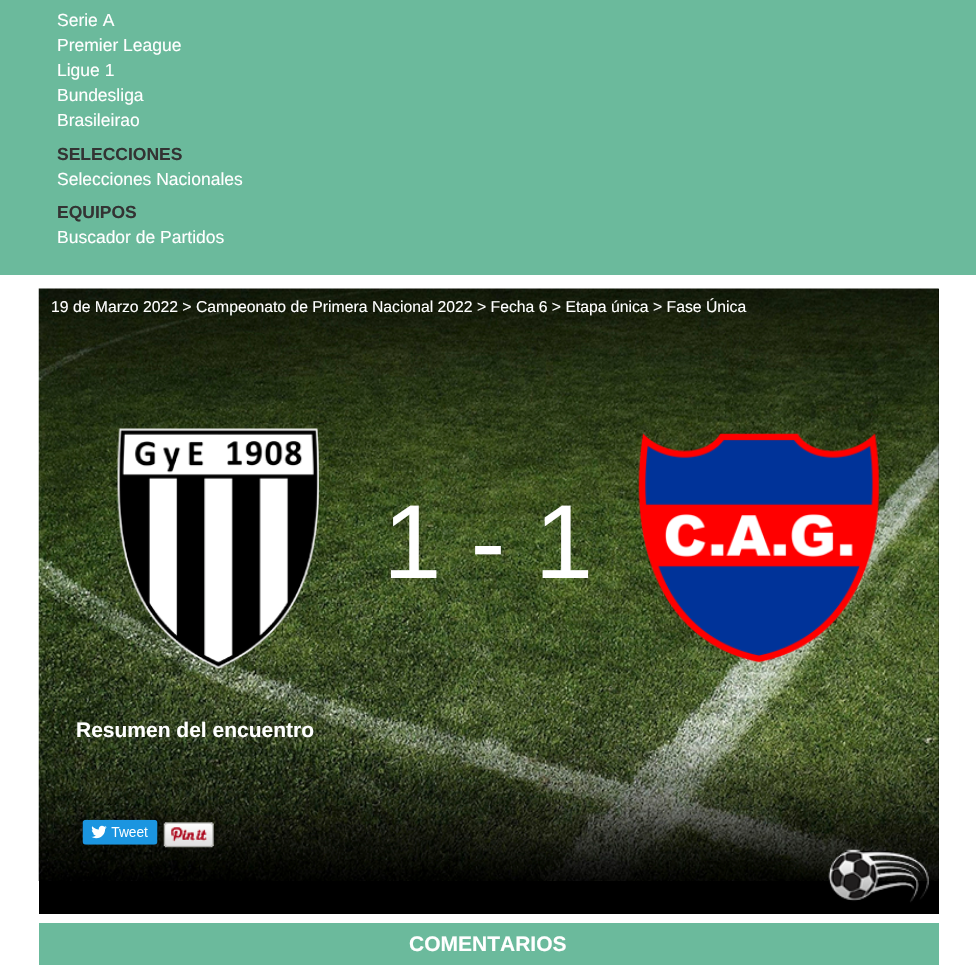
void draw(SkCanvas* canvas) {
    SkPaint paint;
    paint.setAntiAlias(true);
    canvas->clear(0xFFFFFFFF);
    paint.setColor(0xFF6BBA9C);
    canvas->drawRect(SkRect::MakeXYWH(0, 0, 976, 275), paint);
    SkFont font1(fontMgr->matchFamilyStyle("Liberation Sans", SkFontStyle::Normal()), 17.5f);
    font1.setSubpixel(true);
    paint.setColor(0xFFFFFFFF);
    canvas->drawString("Serie A", 57, 26, font1, paint);
    canvas->drawString("Premier League", 57, 51, font1, paint);
    canvas->drawString("Ligue 1", 57, 76, font1, paint);
    canvas->drawString("Bundesliga", 57, 101, font1, paint);
    canvas->drawString("Brasileirao", 57, 126, font1, paint);
    SkFont font2(fontMgr->matchFamilyStyle("Liberation Sans", SkFontStyle::Bold()), 17.5f);
    font2.setSubpixel(true);
    paint.setColor(0xFF333333);
    canvas->drawString("SELECCIONES", 57, 160, font2, paint);
    paint.setColor(0xFFFFFFFF);
    canvas->drawString("Selecciones Nacionales", 57, 185, font1, paint);
    paint.setColor(0xFF333333);
    canvas->drawString("EQUIPOS", 57, 218, font2, paint);
    paint.setColor(0xFFFFFFFF);
    canvas->drawString("Buscador de Partidos", 57, 243, font1, paint);
    paint.setColor(0xFF000000);
    canvas->drawRect(SkRect::MakeXYWH(39, 289, 900, 625), paint);
    canvas->drawImageRect(SkImages::DeferredFromEncodedData(SkData::MakeFromFileName("img1.png")), SkRect::MakeXYWH(38, 288, 901, 593), SkSamplingOptions());
    SkFont font3(fontMgr->matchFamilyStyle("Liberation Sans", SkFontStyle::Normal()), 15.75f);
    font3.setSubpixel(true);
    paint.setColor(0xFFFFFFFF);
    canvas->drawString("19 de Marzo 2022 > Campeonato de Primera Nacional 2022 > Fecha 6 > Etapa única > Fase Única", 51, 312, font3, paint);
    canvas->drawImageRect(SkImages::DeferredFromEncodedData(SkData::MakeFromFileName("img2.png")), SkRect::MakeXYWH(117, 428, 202, 241), SkSamplingOptions());
    SkFont font4(fontMgr->matchFamilyStyle("Liberation Sans", SkFontStyle::Normal()), 105);
    font4.setSubpixel(true);
    canvas->drawString("1 - 1", 383, 578, font4, paint);
    canvas->drawImageRect(SkImages::DeferredFromEncodedData(SkData::MakeFromFileName("img3.png")), SkRect::MakeXYWH(638, 433, 241, 230), SkSamplingOptions());
    canvas->drawImageRect(SkImages::DeferredFromEncodedData(SkData::MakeFromFileName("img4.png")), SkRect::MakeXYWH(828, 849, 101, 54), SkSamplingOptions());
    SkFont font5(fontMgr->matchFamilyStyle("Liberation Sans", SkFontStyle::Bold()), 21);
    font5.setSubpixel(true);
    canvas->drawString("Resumen del encuentro", 76, 737, font5, paint);
    canvas->drawImageRect(SkImages::DeferredFromEncodedData(SkData::MakeFromFileName("img5.png")), SkRect::MakeXYWH(82, 819, 76, 26), SkSamplingOptions());
    canvas->drawImageRect(SkImages::DeferredFromEncodedData(SkData::MakeFromFileName("img6.png")), SkRect::MakeXYWH(163, 822, 51, 26), SkSamplingOptions());
    paint.setColor(0xFF6BBA9C);
    canvas->drawRect(SkRect::MakeXYWH(39, 923, 900, 42), paint);
    paint.setColor(0xFFFFFFFF);
    canvas->drawString("COMENTARIOS", 409, 951, font5, paint);
}
